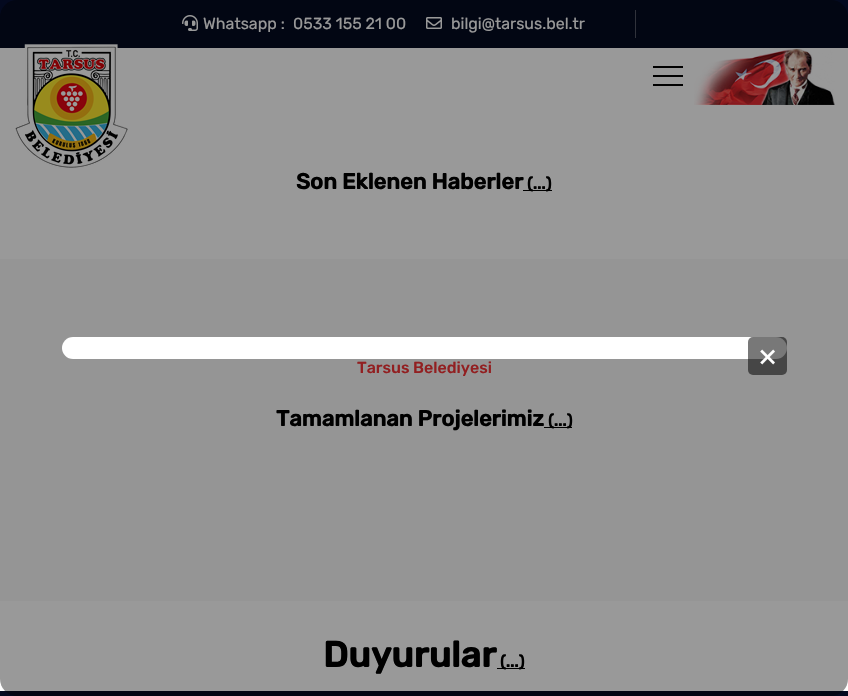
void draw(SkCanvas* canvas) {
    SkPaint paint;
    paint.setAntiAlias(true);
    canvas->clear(0xFFFFFFFF);
    paint.setColor(0xFF03091F);
    canvas->drawRect(SkRect::MakeXYWH(0, 0, 848, 48), paint);
    paint.setColor(0xFF4F5362);
    canvas->drawRect(SkRect::MakeXYWH(635, 10, 1, 28), paint);
    canvas->drawImageRect(SkImages::DeferredFromEncodedData(SkData::MakeFromFileName("img1.png")), SkRect::MakeXYWH(182, 15, 16, 16), SkSamplingOptions());
    SkFont font1(fontMgr->matchFamilyStyle("Rubik", SkFontStyle::Normal()), 16);
    font1.setSubpixel(true);
    paint.setColor(0xFFFFFFFF);
    canvas->drawString("Whatsapp :", 203, 29, font1, paint);
    canvas->drawString("0533 155 21 00", 293, 29, font1, paint);
    canvas->drawImageRect(SkImages::DeferredFromEncodedData(SkData::MakeFromFileName("img2.png")), SkRect::MakeXYWH(426, 17, 16, 12), SkSamplingOptions());
    canvas->drawString("bilgi@tarsus.bel.tr", 451, 29, font1, paint);
    canvas->drawImageRect(SkImages::DeferredFromEncodedData(SkData::MakeFromFileName("img3.png")), SkRect::MakeXYWH(15, 44, 113, 124), SkSamplingOptions());
    paint.setColor(0xFF000000);
    canvas->drawRect(SkRect::MakeXYWH(653, 66, 30, 2), paint);
    canvas->drawRect(SkRect::MakeXYWH(653, 75, 30, 2), paint);
    canvas->drawRect(SkRect::MakeXYWH(653, 84, 30, 2), paint);
    canvas->drawImageRect(SkImages::DeferredFromEncodedData(SkData::MakeFromFileName("img4.png")), SkRect::MakeXYWH(694, 48, 141, 57), SkSamplingOptions());
    SkFont font2(fontMgr->matchFamilyStyle("Rubik", SkFontStyle::Bold()), 22);
    font2.setSubpixel(true);
    canvas->drawString("Son Eklenen Haberler", 296, 189, font2, paint);
    canvas->drawRect(SkRect::MakeXYWH(523, 190, 29, 1), paint);
    SkFont font3(fontMgr->matchFamilyStyle("Rubik", SkFontStyle::Bold()), 16);
    font3.setSubpixel(true);
    canvas->drawString("(...)", 527, 189, font3, paint);
    paint.setColor(0xFFF8F8F8);
    canvas->drawRect(SkRect::MakeXYWH(0, 259, 848, 342), paint);
    SkFont font4(fontMgr->matchFamilyStyle("Rubik", SkFontStyle(500, SkFontStyle::kNormal_Width, SkFontStyle::kUpright_Slant)), 16);
    font4.setSubpixel(true);
    paint.setColor(0xFFF43336);
    canvas->drawString("Tarsus Belediyesi", 357, 373, font4, paint);
    paint.setColor(0xFF000000);
    canvas->drawString("Tamamlanan Projelerimiz", 276, 426, font2, paint);
    canvas->drawRect(SkRect::MakeXYWH(544, 427, 28, 1), paint);
    canvas->drawString("(...)", 548, 426, font3, paint);
    SkFont font5(fontMgr->matchFamilyStyle("Rubik", SkFontStyle::Bold()), 36);
    font5.setSubpixel(true);
    canvas->drawString("Duyurular", 323, 667, font5, paint);
    canvas->drawRect(SkRect::MakeXYWH(497, 668, 28, 1), paint);
    canvas->drawString("(...)", 500, 667, font3, paint);
    paint.setColor(0xFF03091F);
    canvas->drawRect(SkRect::MakeXYWH(0, 691, 848, 5), paint);
    paint.setColor(0x66000000);
    canvas->drawRoundRect(SkRect::MakeXYWH(0, 0, 848, 696), 17, 17, paint);
    paint.setColor(0xFFFFFFFF);
    canvas->drawRoundRect(SkRect::MakeXYWH(62, 337, 725, 22), 11, 11, paint);
    paint.setColor(0x87000000);
    canvas->drawRoundRect(SkRect::MakeXYWH(748, 337, 39, 38), 5, 5, paint);
    SkFont font6(fontMgr->matchFamilyStyle("DejaVu Sans Mono", SkFontStyle::Normal()), 32);
    font6.setSubpixel(true);
    paint.setColor(0xFFFFFFFF);
    canvas->drawString("×", 758, 367, font6, paint);
}
